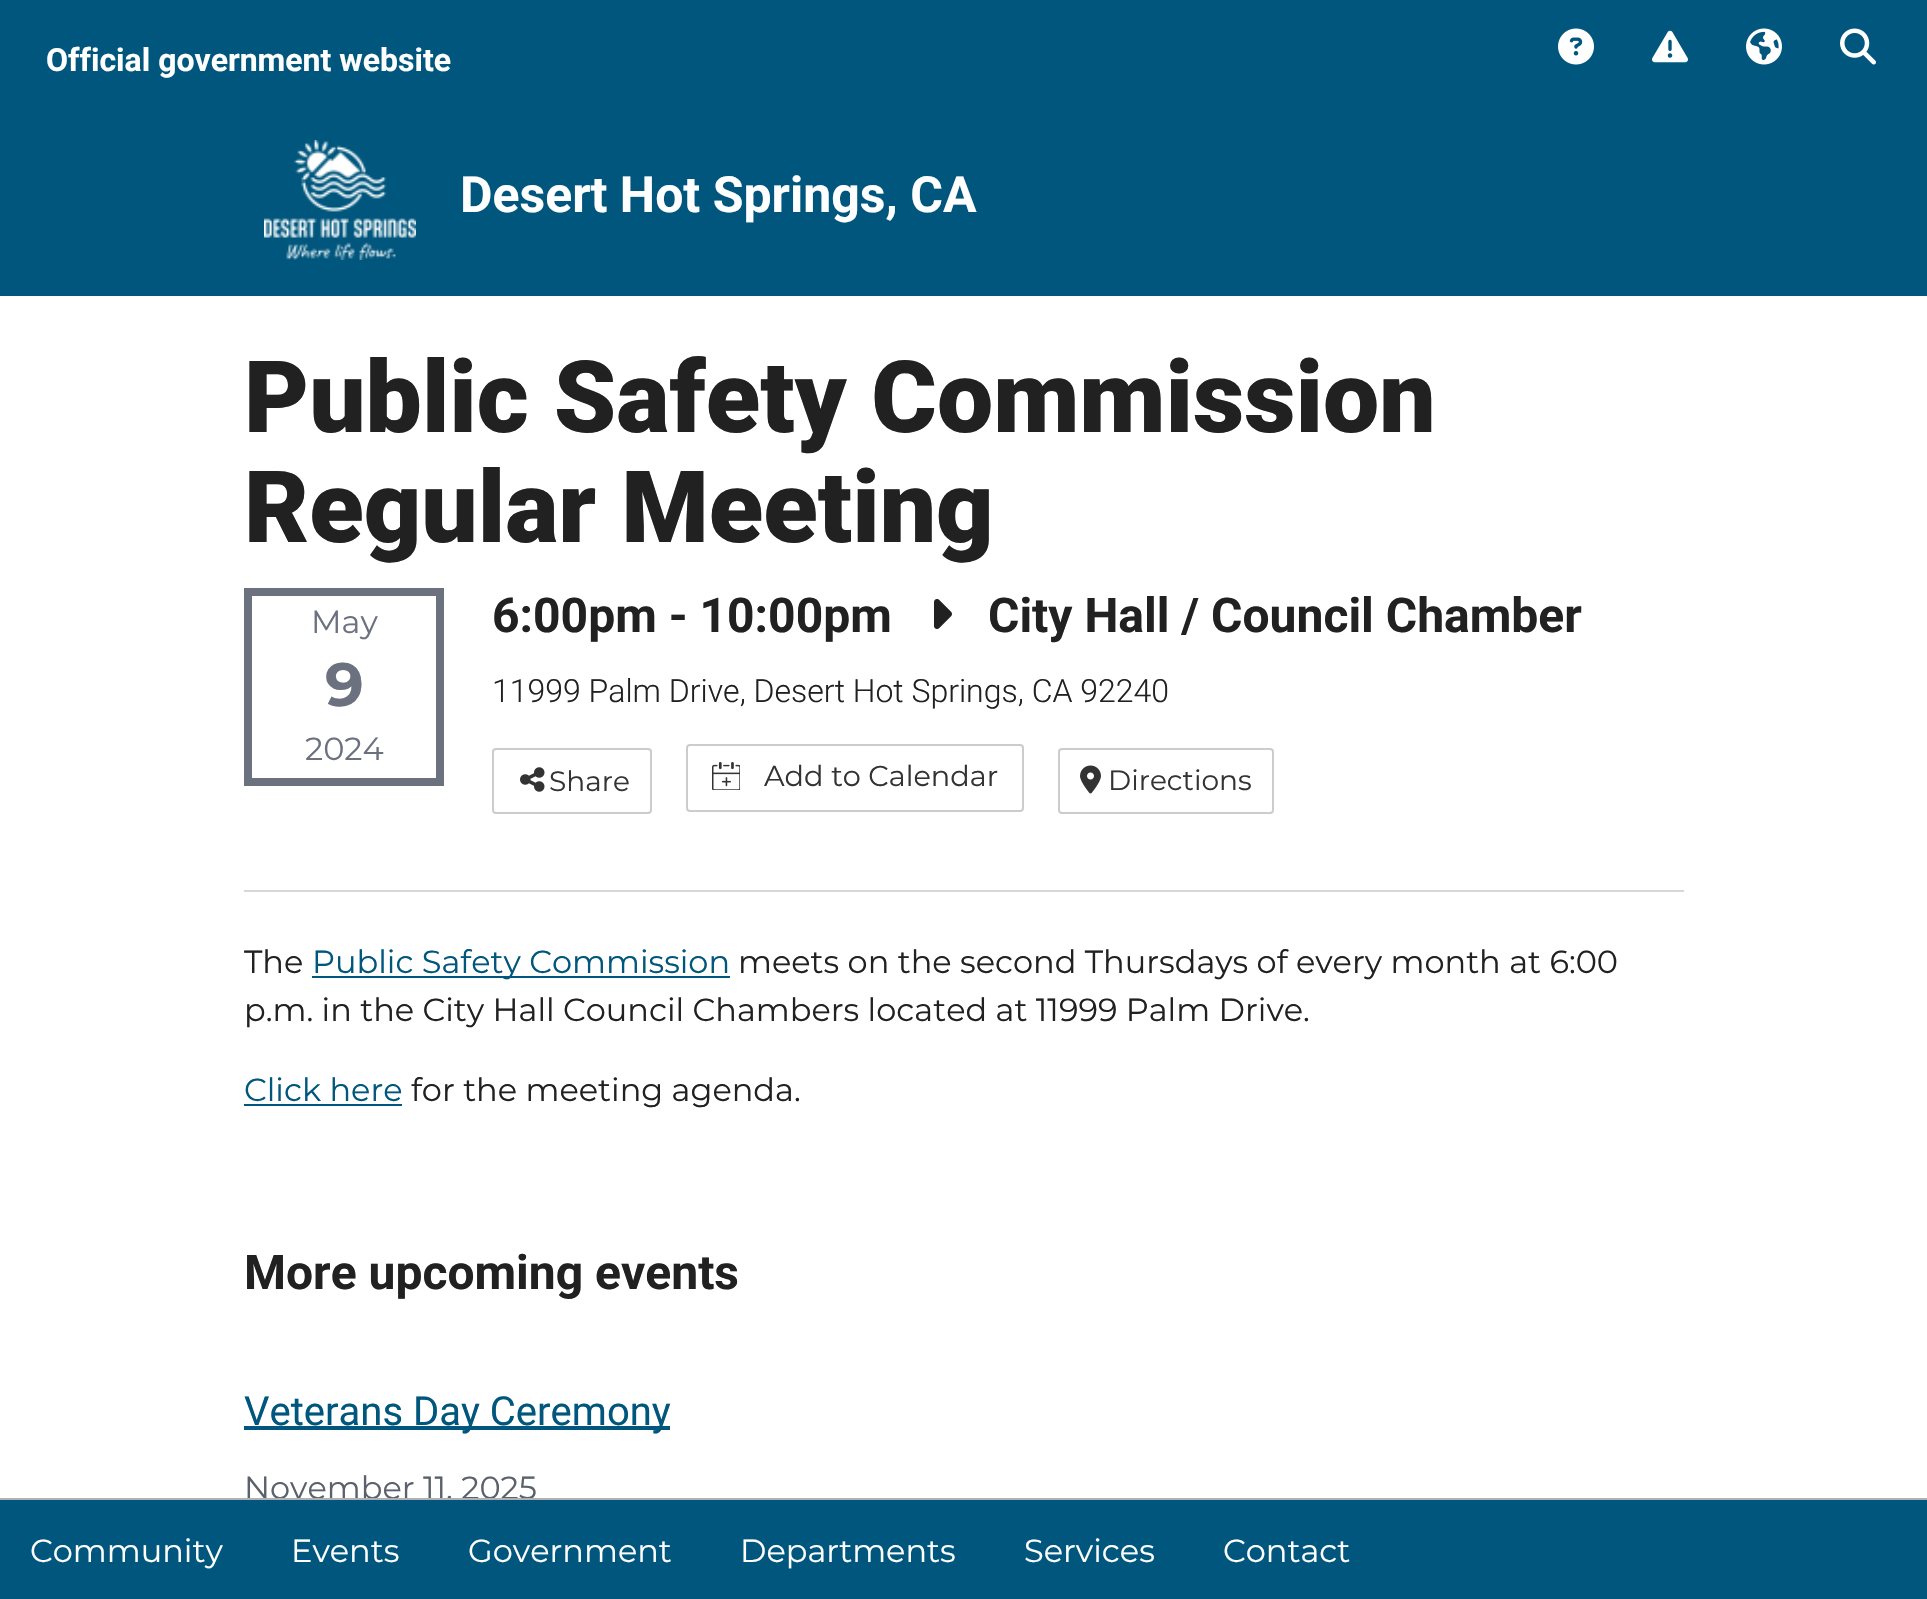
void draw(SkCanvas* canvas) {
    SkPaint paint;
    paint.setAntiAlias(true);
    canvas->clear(0xFFFFFFFF);
    paint.setColor(0xFF00567C);
    canvas->drawRect(SkRect::MakeXYWH(0, 0, 1927, 296), paint);
    SkFont font1(fontMgr->matchFamilyStyle("Roboto", SkFontStyle::Bold()), 32);
    font1.setSubpixel(true);
    paint.setColor(0xFFFFFFFF);
    canvas->drawString("Official government website", 46, 71, font1, paint);
    canvas->drawImageRect(SkImages::DeferredFromEncodedData(SkData::MakeFromFileName("img1.png")), SkRect::MakeXYWH(1558, 28, 36, 37), SkSamplingOptions());
    canvas->drawImageRect(SkImages::DeferredFromEncodedData(SkData::MakeFromFileName("img2.png")), SkRect::MakeXYWH(1652, 30, 36, 33), SkSamplingOptions());
    canvas->drawImageRect(SkImages::DeferredFromEncodedData(SkData::MakeFromFileName("img3.png")), SkRect::MakeXYWH(1746, 28, 36, 37), SkSamplingOptions());
    canvas->drawImageRect(SkImages::DeferredFromEncodedData(SkData::MakeFromFileName("img4.png")), SkRect::MakeXYWH(1840, 28, 36, 37), SkSamplingOptions());
    canvas->drawImageRect(SkImages::DeferredFromEncodedData(SkData::MakeFromFileName("img5.png")), SkRect::MakeXYWH(264, 140, 152, 120), SkSamplingOptions());
    SkFont font2(fontMgr->matchFamilyStyle("Roboto", SkFontStyle::Bold()), 50);
    font2.setSubpixel(true);
    canvas->drawString("Desert Hot Springs, CA", 460, 212, font2, paint);
    SkFont font3(fontMgr->matchFamilyStyle("Montserrat", SkFontStyle::Normal()), 32);
    font3.setSubpixel(true);
    paint.setColor(0xFF5B616B);
    canvas->drawString("November 11, 2025", 244, 1499, font3, paint);
    paint.setColor(0xFF00567C);
    canvas->drawRect(SkRect::MakeXYWH(0, 1500, 1927, 99), paint);
    paint.setColor(0xFFAEB0B5);
    canvas->drawRect(SkRect::MakeXYWH(0, 1498, 1927, 2), paint);
    paint.setColor(0xFFFFFFFF);
    canvas->drawString("Community", 30, 1562, font3, paint);
    canvas->drawString("Events", 291, 1562, font3, paint);
    canvas->drawString("Government", 468, 1562, font3, paint);
    canvas->drawString("Departments", 740, 1562, font3, paint);
    canvas->drawString("Services", 1024, 1562, font3, paint);
    canvas->drawString("Contact", 1223, 1562, font3, paint);
    SkFont font4(fontMgr->matchFamilyStyle("Roboto", SkFontStyle(900, SkFontStyle::kNormal_Width, SkFontStyle::kUpright_Slant)), 100);
    font4.setSubpixel(true);
    paint.setColor(0xFF212121);
    canvas->drawString("Public Safety Commission", 244, 432, font4, paint);
    canvas->drawString("Regular Meeting", 244, 542, font4, paint);
    paint.setStyle(SkPaint::kStroke_Style);
    paint.setStrokeWidth(8);
    paint.setColor(0xFF6C717F);
    canvas->drawRect(SkRect::MakeXYWH(248, 592, 192, 190), paint);
    paint.setStyle(SkPaint::kFill_Style);
    canvas->drawString("May", 311, 633, font3, paint);
    SkFont font5(fontMgr->matchFamilyStyle("Montserrat", SkFontStyle::Bold()), 61);
    font5.setSubpixel(true);
    canvas->drawString("9", 325, 706, font5, paint);
    canvas->drawString("2024", 305, 760, font3, paint);
    SkFont font6(fontMgr->matchFamilyStyle("Roboto", SkFontStyle::Bold()), 48);
    font6.setSubpixel(true);
    paint.setColor(0xFF212121);
    canvas->drawString("6:00pm - 10:00pm", 492, 632, font6, paint);
    canvas->drawImageRect(SkImages::DeferredFromEncodedData(SkData::MakeFromFileName("img6.png")), SkRect::MakeXYWH(934, 599, 18, 30), SkSamplingOptions());
    canvas->drawString("City Hall / Council Chamber", 988, 632, font6, paint);
    SkFont font7(fontMgr->matchFamilyStyle("Roboto", SkFontStyle(300, SkFontStyle::kNormal_Width, SkFontStyle::kUpright_Slant)), 32);
    font7.setSubpixel(true);
    canvas->drawString("11999 Palm Drive, Desert Hot Springs, CA 92240", 492, 702, font7, paint);
    paint.setStyle(SkPaint::kStroke_Style);
    paint.setStrokeWidth(2);
    paint.setColor(0xFFCCCCCC);
    canvas->drawRoundRect(SkRect::MakeXYWH(493, 749, 158, 64), 3, 3, paint);
    canvas->drawImageRect(SkImages::DeferredFromEncodedData(SkData::MakeFromFileName("img7.png")), SkRect::MakeXYWH(520, 767, 25, 25), SkSamplingOptions());
    SkFont font8(fontMgr->matchFamilyStyle("Montserrat", SkFontStyle::Normal()), 28);
    font8.setSubpixel(true);
    paint.setStyle(SkPaint::kFill_Style);
    paint.setColor(0xFF333333);
    canvas->drawString("Share", 549, 791, font8, paint);
    paint.setStyle(SkPaint::kStroke_Style);
    paint.setColor(0xFFCCCCCC);
    canvas->drawRoundRect(SkRect::MakeXYWH(687, 745, 336, 66), 3, 3, paint);
    canvas->drawImageRect(SkImages::DeferredFromEncodedData(SkData::MakeFromFileName("img8.png")), SkRect::MakeXYWH(712, 762, 28, 28), SkSamplingOptions());
    SkFont font9(fontMgr->matchFamilyStyle("Montserrat", SkFontStyle::Normal()), 28.75f);
    font9.setSubpixel(true);
    paint.setStyle(SkPaint::kFill_Style);
    paint.setColor(0xFF333333);
    canvas->drawString("Add to Calendar", 764, 786, font9, paint);
    paint.setStyle(SkPaint::kStroke_Style);
    paint.setColor(0xFFCCCCCC);
    canvas->drawRoundRect(SkRect::MakeXYWH(1059, 749, 214, 64), 3, 3, paint);
    canvas->drawImageRect(SkImages::DeferredFromEncodedData(SkData::MakeFromFileName("img9.png")), SkRect::MakeXYWH(1080, 765, 21, 29), SkSamplingOptions());
    paint.setStyle(SkPaint::kFill_Style);
    paint.setColor(0xFF333333);
    canvas->drawString("Directions", 1108, 790, font8, paint);
    paint.setColor(0xFFD6D7D9);
    canvas->drawRect(SkRect::MakeXYWH(244, 890, 1440, 2), paint);
    paint.setColor(0xFF212121);
    canvas->drawString("The", 244, 973, font3, paint);
    paint.setColor(0xFF00567C);
    canvas->drawRect(SkRect::MakeXYWH(312, 976, 418, 2), paint);
    canvas->drawString("Public Safety Commission", 312, 973, font3, paint);
    paint.setColor(0xFF212121);
    canvas->drawString("meets on the second Thursdays of every month at 6:00", 738, 973, font3, paint);
    canvas->drawString("p.m. in the City Hall Council Chambers located at 11999 Palm Drive.", 244, 1021, font3, paint);
    paint.setColor(0xFF00567C);
    canvas->drawString("Click here", 244, 1101, font3, paint);
    canvas->drawRect(SkRect::MakeXYWH(244, 1104, 158, 2), paint);
    paint.setColor(0xFF212121);
    canvas->drawString("for the meeting agenda.", 411, 1101, font3, paint);
    canvas->drawString("More upcoming events", 244, 1289, font6, paint);
    paint.setColor(0xFF00567C);
    canvas->drawRect(SkRect::MakeXYWH(244, 1426, 426, 4), paint);
    SkFont font10(fontMgr->matchFamilyStyle("Roboto", SkFontStyle::Normal()), 40);
    font10.setSubpixel(true);
    canvas->drawString("Veterans Day Ceremony", 244, 1425, font10, paint);
}
